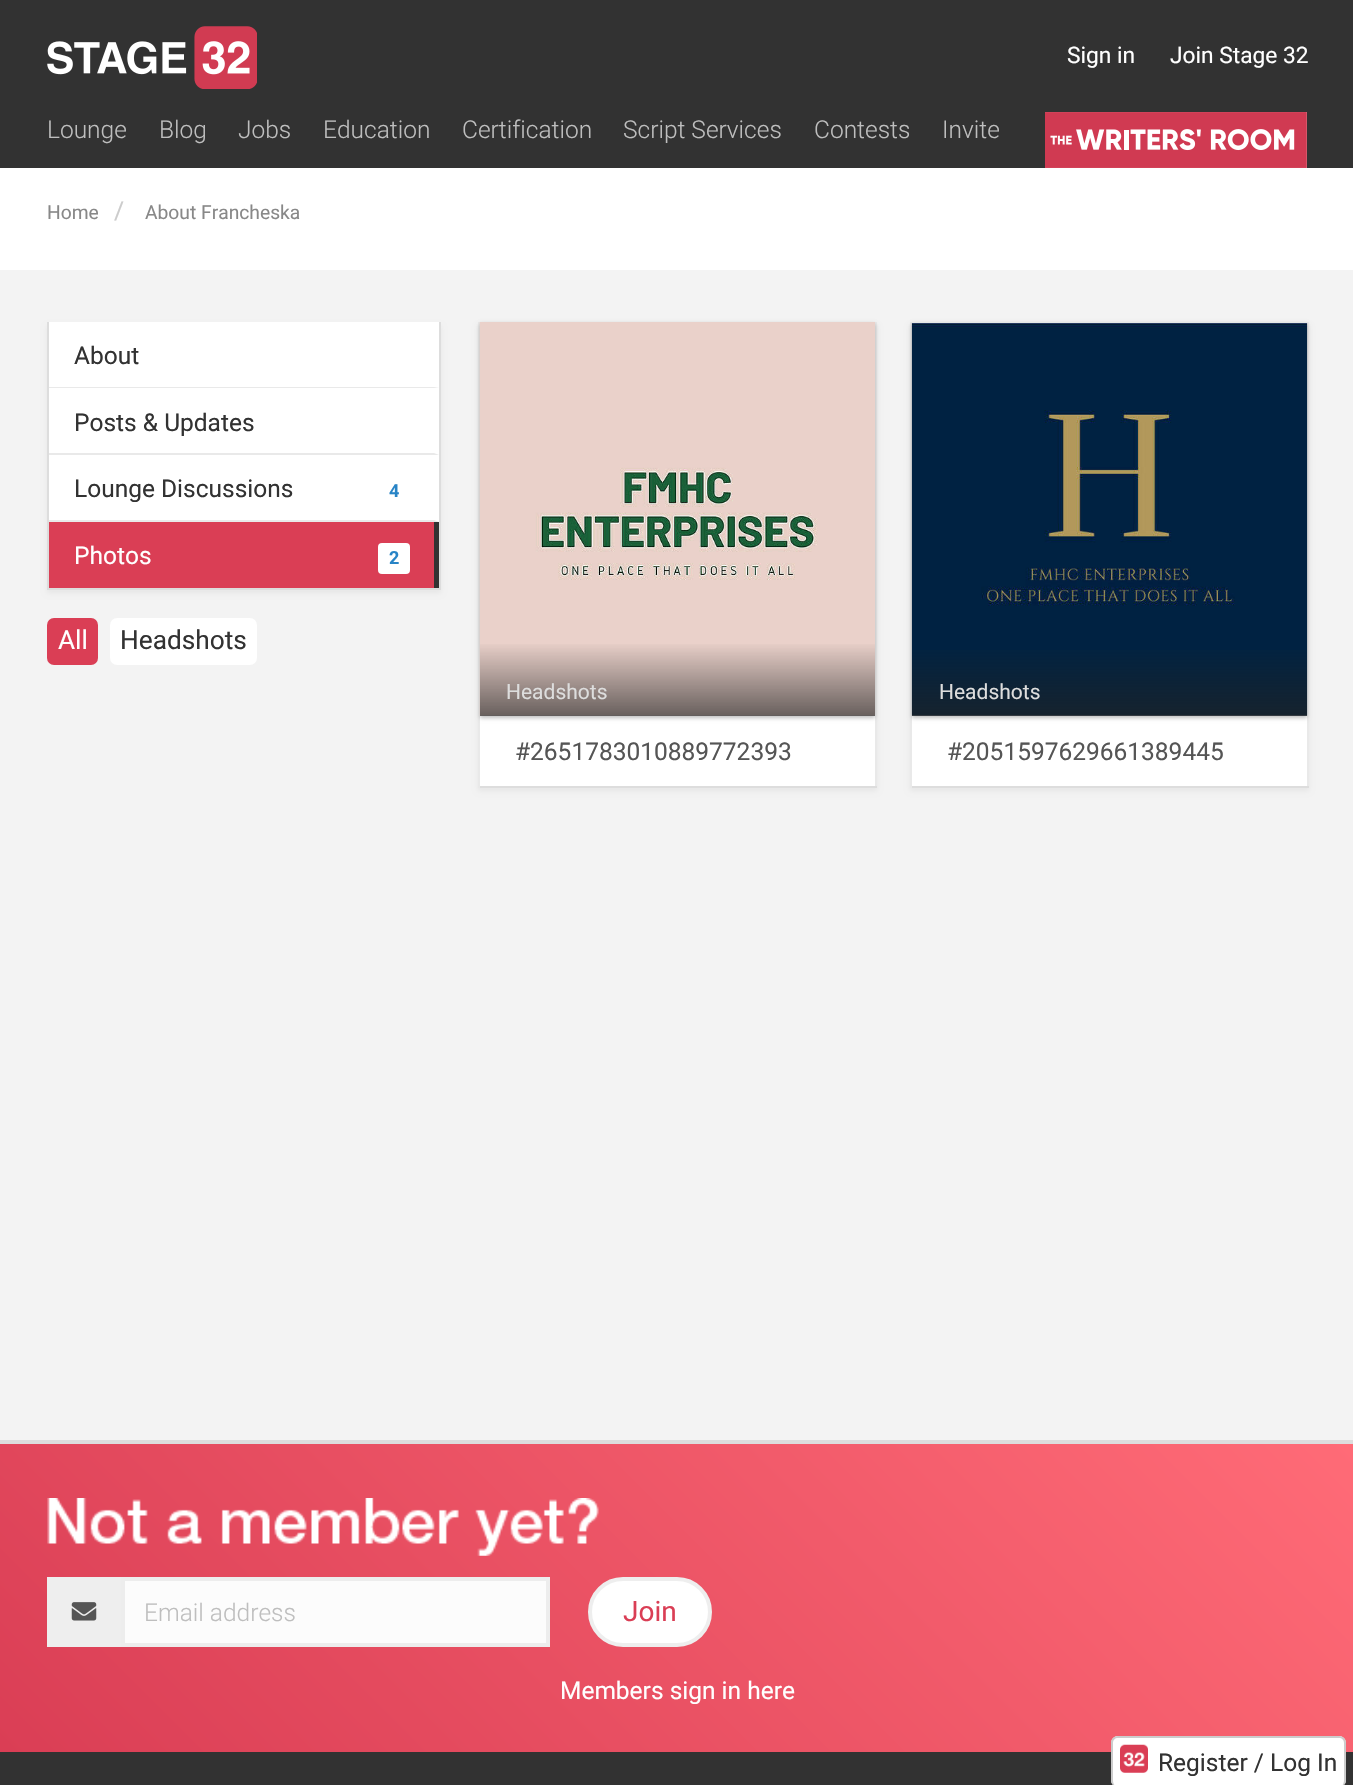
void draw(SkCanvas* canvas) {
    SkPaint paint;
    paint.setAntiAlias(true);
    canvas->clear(0xFFF3F3F3);
    paint.setColor(0xFF323232);
    canvas->drawRect(SkRect::MakeXYWH(0, 0, 1353, 168), paint);
    canvas->drawImageRect(SkImages::DeferredFromEncodedData(SkData::MakeFromFileName("img1.png")), SkRect::MakeXYWH(47, 26, 210, 63), SkSamplingOptions());
    SkFont font1(fontMgr->matchFamilyStyle("Roboto", SkFontStyle::Normal()), 22.75f);
    font1.setSubpixel(true);
    paint.setColor(0xFFFFFFFF);
    canvas->drawString("Sign in", 1067, 63, font1, paint);
    canvas->drawString("Join Stage 32", 1170, 63, font1, paint);
    SkFont font2(fontMgr->matchFamilyStyle("Roboto", SkFontStyle(300, SkFontStyle::kNormal_Width, SkFontStyle::kUpright_Slant)), 24.5f);
    font2.setSubpixel(true);
    paint.setColor(0xFFBEBEBE);
    canvas->drawString("Lounge", 47, 138, font2, paint);
    canvas->drawString("Blog", 159, 138, font2, paint);
    canvas->drawString("Jobs", 238, 138, font2, paint);
    canvas->drawString("Education", 323, 138, font2, paint);
    canvas->drawString("Certification", 462, 138, font2, paint);
    canvas->drawString("Script Services", 623, 138, font2, paint);
    canvas->drawString("Contests", 814, 138, font2, paint);
    canvas->drawString("Invite", 942, 138, font2, paint);
    canvas->drawImageRect(SkImages::DeferredFromEncodedData(SkData::MakeFromFileName("img2.png")), SkRect::MakeXYWH(1045, 112, 262, 56), SkSamplingOptions());
    paint.setColor(0xFFFFFFFF);
    canvas->drawRect(SkRect::MakeXYWH(0, 168, 1353, 102), paint);
    SkFont font3(fontMgr->matchFamilyStyle("Roboto", SkFontStyle::Normal()), 19.25f);
    font3.setSubpixel(true);
    paint.setColor(0xFF888888);
    canvas->drawString("Home", 47, 219, font3, paint);
    SkFont font4(fontMgr->matchFamilyStyle("Roboto", SkFontStyle::Normal()), 24.5f);
    font4.setSubpixel(true);
    paint.setColor(0xFFCCCCCC);
    canvas->drawString("/", 114, 219, font4, paint);
    paint.setColor(0xFF888888);
    canvas->drawString("About Francheska", 145, 219, font3, paint);
    paint.setColor(0x0D000000);
    paint.setMaskFilter(SkMaskFilter::MakeBlur(kNormal_SkBlurStyle, 2.5f));
    canvas->drawRect(SkRect::MakeXYWH(47, 326, 394, 267), paint);
    paint.setMaskFilter(nullptr);
    paint.setColor(0xFFFFFFFF);
    canvas->drawRect(SkRect::MakeXYWH(49, 322, 390, 200), paint);
    paint.setColor(0xFFDDDDDD);
    canvas->drawRect(SkRect::MakeXYWH(439, 322, 2, 268), paint);
    canvas->drawRect(SkRect::MakeXYWH(47, 588, 394, 2), paint);
    canvas->drawRect(SkRect::MakeXYWH(47, 322, 2, 268), paint);
    paint.setColor(0xFFE9E9E9);
    canvas->drawPath(SkPathBuilder().moveTo(439, 388).lineTo(49, 388).lineTo(49, 387).lineTo(434, 387).close().detach(), paint);
    paint.setColor(0xFF323232);
    canvas->drawString("About", 74, 364, font4, paint);
    paint.setColor(0xFFE9E9E9);
    canvas->drawPath(SkPathBuilder().moveTo(439, 455).lineTo(49, 455).lineTo(49, 453).lineTo(434, 453).close().detach(), paint);
    paint.setColor(0xFF323232);
    canvas->drawString("Posts & Updates", 74, 431, font4, paint);
    paint.setColor(0xFFE9E9E9);
    canvas->drawPath(SkPathBuilder().moveTo(439, 522).lineTo(49, 522).lineTo(49, 520).lineTo(434, 520).close().detach(), paint);
    paint.setColor(0xFF323232);
    canvas->drawString("Lounge Discussions", 74, 497, font4, paint);
    SkFont font5(fontMgr->matchFamilyStyle("Roboto", SkFontStyle::Bold()), 18);
    font5.setSubpixel(true);
    paint.setColor(0xFF2884C6);
    canvas->drawString("4", 389, 497, font5, paint);
    paint.setColor(0xFFDA3E55);
    canvas->drawRect(SkRect::MakeXYWH(49, 522, 385, 66), paint);
    paint.setColor(0xFF323232);
    canvas->drawRect(SkRect::MakeXYWH(434, 522, 5, 66), paint);
    paint.setColor(0xFFFFFFFF);
    canvas->drawString("Photos", 74, 564, font4, paint);
    canvas->drawRoundRect(SkRect::MakeXYWH(378, 543, 32, 31), 4, 4, paint);
    paint.setColor(0xFF2884C6);
    canvas->drawString("2", 389, 564, font5, paint);
    paint.setColor(0xFFDA3E55);
    canvas->drawRoundRect(SkRect::MakeXYWH(47, 618, 51, 47), 7, 7, paint);
    SkFont font6(fontMgr->matchFamilyStyle("Roboto", SkFontStyle::Normal()), 26.25f);
    font6.setSubpixel(true);
    paint.setColor(0xFFFFFFFF);
    canvas->drawString("All", 58, 649, font6, paint);
    canvas->drawRoundRect(SkRect::MakeXYWH(110, 618, 147, 47), 7, 7, paint);
    paint.setColor(0xFF323232);
    canvas->drawString("Headshots", 120, 649, font6, paint);
    paint.setColor(0x0D000000);
    paint.setMaskFilter(SkMaskFilter::MakeBlur(kNormal_SkBlurStyle, 2.5f));
    canvas->drawRect(SkRect::MakeXYWH(478, 326, 399, 465), paint);
    paint.setMaskFilter(nullptr);
    paint.setColor(0xFFFFFFFF);
    canvas->drawRect(SkRect::MakeXYWH(480, 715, 395, 71), paint);
    paint.setColor(0xFFE9E9E9);
    canvas->drawRect(SkRect::MakeXYWH(875, 322, 2, 466), paint);
    paint.setColor(0xFFDDDDDD);
    canvas->drawRect(SkRect::MakeXYWH(478, 786, 399, 2), paint);
    paint.setColor(0xFFE9E9E9);
    canvas->drawRect(SkRect::MakeXYWH(478, 322, 2, 466), paint);
    paint.setColor(0x40000000);
    paint.setMaskFilter(SkMaskFilter::MakeBlur(kNormal_SkBlurStyle, 2));
    canvas->drawRect(SkRect::MakeXYWH(480, 324, 395, 394), paint);
    paint.setMaskFilter(nullptr);
    canvas->drawImageRect(SkImages::DeferredFromEncodedData(SkData::MakeFromFileName("img3.png")), SkRect::MakeXYWH(479, 322, 396, 394), SkSamplingOptions());
    {
        const SkColor colors[] = {0x00222222, 0xA6222222};
        const float stops[] = {0, 1};
        const SkPoint ends[] = {{677, 642}, {677, 716}};
        paint.setShader(SkGradientShader::MakeLinear(ends, colors, stops, 2, SkTileMode::kClamp));
        paint.setAlpha(255);
    }
    canvas->drawRect(SkRect::MakeXYWH(480, 644, 395, 72), paint);
    SkFont font7(fontMgr->matchFamilyStyle("Roboto", SkFontStyle::Normal()), 21);
    font7.setSubpixel(true);
    paint.setShader(nullptr);
    paint.setColor(0xFFDDDDDD);
    canvas->drawString("Headshots", 506, 699, font7, paint);
    paint.setColor(0xFF555555);
    canvas->drawString("#2651783010889772393", 515, 760, font4, paint);
    paint.setColor(0x0D000000);
    paint.setMaskFilter(SkMaskFilter::MakeBlur(kNormal_SkBlurStyle, 2.5f));
    canvas->drawRect(SkRect::MakeXYWH(910, 326, 399, 465), paint);
    paint.setMaskFilter(nullptr);
    paint.setColor(0xFFFFFFFF);
    canvas->drawRect(SkRect::MakeXYWH(912, 715, 395, 71), paint);
    paint.setColor(0xFFE9E9E9);
    canvas->drawRect(SkRect::MakeXYWH(1307, 322, 2, 466), paint);
    paint.setColor(0xFFDDDDDD);
    canvas->drawRect(SkRect::MakeXYWH(910, 786, 399, 2), paint);
    paint.setColor(0xFFE9E9E9);
    canvas->drawRect(SkRect::MakeXYWH(910, 322, 2, 466), paint);
    paint.setColor(0x40000000);
    paint.setMaskFilter(SkMaskFilter::MakeBlur(kNormal_SkBlurStyle, 2));
    canvas->drawRect(SkRect::MakeXYWH(912, 324, 395, 394), paint);
    paint.setMaskFilter(nullptr);
    canvas->drawImageRect(SkImages::DeferredFromEncodedData(SkData::MakeFromFileName("img4.png")), SkRect::MakeXYWH(911, 322, 397, 394), SkSamplingOptions());
    {
        const SkColor colors[] = {0x00222222, 0xA6222222};
        const float stops[] = {0, 1};
        const SkPoint ends[] = {{1110, 642}, {1110, 716}};
        paint.setShader(SkGradientShader::MakeLinear(ends, colors, stops, 2, SkTileMode::kClamp));
        paint.setAlpha(255);
    }
    canvas->drawRect(SkRect::MakeXYWH(912, 650, 395, 66), paint);
    paint.setShader(nullptr);
    paint.setColor(0xFFDDDDDD);
    canvas->drawString("Headshots", 939, 699, font7, paint);
    paint.setColor(0xFF555555);
    canvas->drawString("#2051597629661389445", 947, 760, font4, paint);
    {
        const SkColor colors[] = {0xFFDA3E55, 0xFFFF6B77};
        const float stops[] = {0, 1};
        const SkPoint ends[] = {{262, 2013}, {1093, 1182}};
        paint.setShader(SkGradientShader::MakeLinear(ends, colors, stops, 2, SkTileMode::kClamp));
        paint.setAlpha(255);
    }
    canvas->drawRect(SkRect::MakeXYWH(0, 1444, 1353, 308), paint);
    paint.setShader(nullptr);
    paint.setColor(0xFFDDDDDD);
    canvas->drawRect(SkRect::MakeXYWH(0, 1440, 1353, 4), paint);
    canvas->drawImageRect(SkImages::DeferredFromEncodedData(SkData::MakeFromFileName("img5.png")), SkRect::MakeXYWH(47, 1498, 552, 58), SkSamplingOptions());
    paint.setColor(0xFFEEEEEE);
    canvas->drawRect(SkRect::MakeXYWH(47, 1577, 74, 70), paint);
    canvas->drawImageRect(SkImages::DeferredFromEncodedData(SkData::MakeFromFileName("img6.png")), SkRect::MakeXYWH(71, 1602, 26, 19), SkSamplingOptions());
    paint.setColor(0xFFFCFCFC);
    canvas->drawRect(SkRect::MakeXYWH(123, 1579, 425, 66), paint);
    paint.setStyle(SkPaint::kStroke_Style);
    paint.setStrokeWidth(4);
    paint.setColor(0xFFEDEDED);
    canvas->drawRect(SkRect::MakeXYWH(123, 1579, 425, 66), paint);
    paint.setStyle(SkPaint::kFill_Style);
    paint.setColor(0xFFBEBEBE);
    canvas->drawString("Email address", 144, 1621, font2, paint);
    paint.setColor(0xFFFFFFFF);
    canvas->drawRoundRect(SkRect::MakeXYWH(590, 1579, 120, 66), 33, 33, paint);
    paint.setStyle(SkPaint::kStroke_Style);
    paint.setColor(0xFFEEEEEE);
    canvas->drawRoundRect(SkRect::MakeXYWH(590, 1579, 120, 66), 33, 33, paint);
    SkFont font8(fontMgr->matchFamilyStyle("Roboto", SkFontStyle::Normal()), 28);
    font8.setSubpixel(true);
    paint.setStyle(SkPaint::kFill_Style);
    paint.setColor(0xFFDA3E55);
    canvas->drawString("Join", 623, 1621, font8, paint);
    paint.setColor(0xFFFFFFFF);
    canvas->drawString("Members sign in here", 560, 1699, font4, paint);
    paint.setColor(0xFF323232);
    canvas->drawRect(SkRect::MakeXYWH(0, 1752, 1353, 33), paint);
    paint.setColor(0xFFFFFFFF);
    canvas->drawRoundRect(SkRect::MakeXYWH(1111, 1736, 235, 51), 7, 7, paint);
    paint.setColor(0xFFCCCCCC);
    canvas->drawPath(SkPathBuilder(SkPathFillType::kEvenOdd).moveTo(1118, 1736).lineTo(1339, 1736).cubicTo(1343, 1736, 1346, 1739, 1346, 1743).lineTo(1346, 1780).cubicTo(1346, 1784, 1343, 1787, 1339, 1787).lineTo(1118, 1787).cubicTo(1114, 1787, 1111, 1784, 1111, 1780).lineTo(1111, 1743).cubicTo(1111, 1739, 1114, 1736, 1118, 1736).close().moveTo(1118, 1738).lineTo(1339, 1738).cubicTo(1342, 1738, 1344, 1740, 1344, 1743).lineTo(1344, 1780).cubicTo(1344, 1784, 1342, 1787, 1339, 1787).lineTo(1118, 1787).cubicTo(1115, 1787, 1113, 1784, 1113, 1780).lineTo(1113, 1743).cubicTo(1113, 1740, 1115, 1738, 1118, 1738).close().detach(), paint);
    canvas->drawImageRect(SkImages::DeferredFromEncodedData(SkData::MakeFromFileName("img7.png")), SkRect::MakeXYWH(1120, 1744, 28, 29), SkSamplingOptions());
    paint.setColor(0xFF323232);
    canvas->drawString("Register / Log In", 1158, 1771, font4, paint);
}
